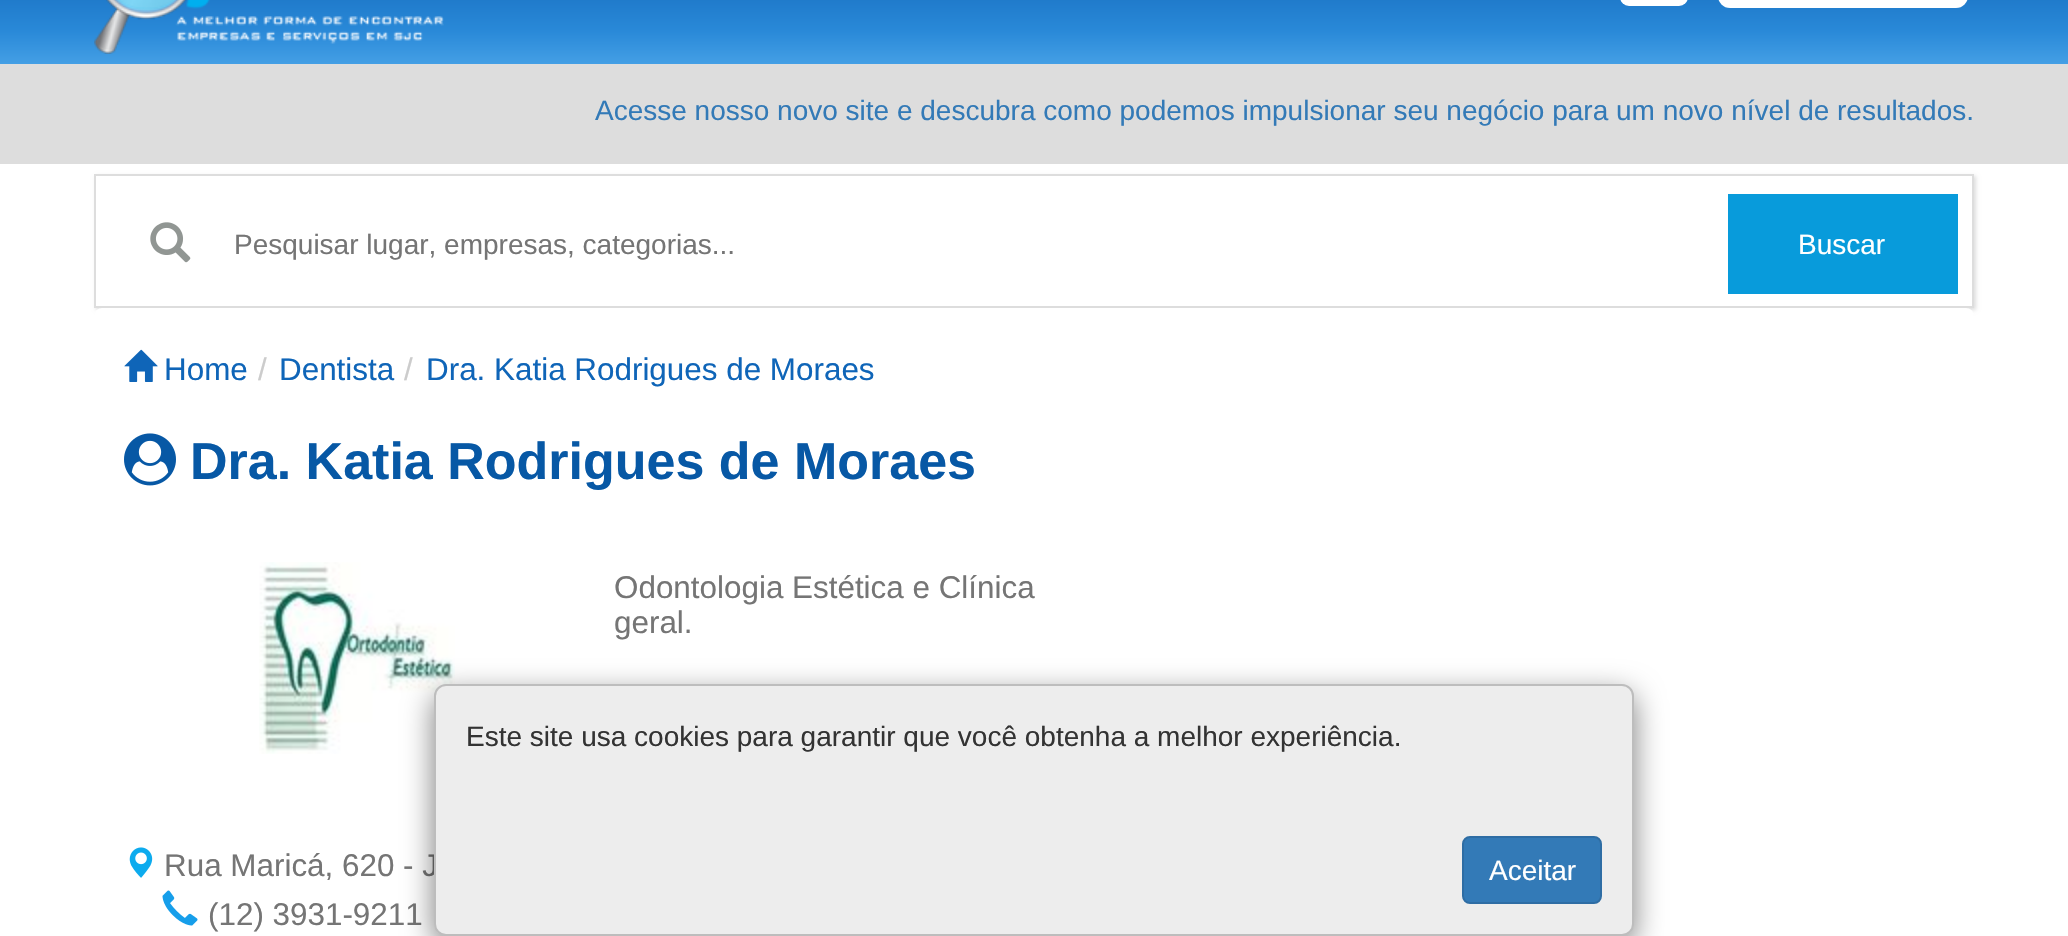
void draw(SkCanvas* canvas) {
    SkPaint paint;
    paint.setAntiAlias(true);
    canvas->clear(0xFFFFFFFF);
    {
        const SkColor colors[] = {0xFF024CA1, 0xFF2989D8, 0xFF449FE5};
        const float stops[] = {0, 0.8f, 1};
        const SkPoint ends[] = {{1034, -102}, {1034, 64}};
        paint.setShader(SkGradientShader::MakeLinear(ends, colors, stops, 3, SkTileMode::kClamp));
        paint.setAlpha(255);
    }
    canvas->drawRect(SkRect::MakeXYWH(0, 0, 2068, 64), paint);
    paint.setShader(nullptr);
    paint.setColor(0xFFFFFFFF);
    canvas->drawRoundRect(SkRect::MakeXYWH(1620, -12, 68, 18), 12, 12, paint);
    canvas->drawRoundRect(SkRect::MakeXYWH(1718, -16, 250, 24), 16, 16, paint);
    canvas->drawImageRect(SkImages::DeferredFromEncodedData(SkData::MakeFromFileName("img1.png")), SkRect::MakeXYWH(94, 0, 350, 54), SkSamplingOptions());
    paint.setColor(0xFFDDDDDD);
    canvas->drawRect(SkRect::MakeXYWH(0, 64, 2068, 100), paint);
    SkFont font1(fontMgr->matchFamilyStyle("Liberation Sans", SkFontStyle::Normal()), 28);
    font1.setSubpixel(true);
    paint.setColor(0xFF337AB7);
    canvas->drawString("Acesse nosso novo site e descubra como podemos impulsionar seu negócio para um novo nível de resultados.", 595, 120, font1, paint);
    canvas->save();
    canvas->clipPath(SkPathBuilder(SkPathFillType::kEvenOdd).moveTo(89, 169).lineTo(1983, 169).lineTo(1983, 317).lineTo(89, 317).close().moveTo(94, 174).lineTo(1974, 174).lineTo(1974, 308).lineTo(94, 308).close().detach(), true);
    paint.setColor(0xFFDDDDDD);
    paint.setMaskFilter(SkMaskFilter::MakeBlur(kNormal_SkBlurStyle, 2));
    canvas->drawRect(SkRect::MakeXYWH(96, 176, 1880, 134), paint);
    paint.setMaskFilter(nullptr);
    canvas->restore();
    paint.setStyle(SkPaint::kStroke_Style);
    paint.setStrokeWidth(2);
    canvas->drawRect(SkRect::MakeXYWH(95, 175, 1878, 132), paint);
    canvas->drawImageRect(SkImages::DeferredFromEncodedData(SkData::MakeFromFileName("img2.png")), SkRect::MakeXYWH(150, 222, 41, 41), SkSamplingOptions());
    paint.setStyle(SkPaint::kFill_Style);
    paint.setColor(0xFF757575);
    canvas->drawString("Pesquisar lugar, empresas, categorias...", 234, 254, font1, paint);
    paint.setColor(0xFF089BDB);
    canvas->drawRect(SkRect::MakeXYWH(1728, 194, 230, 100), paint);
    paint.setColor(0xFFFFFFFF);
    canvas->drawString("Buscar", 1798, 254, font1, paint);
    canvas->drawRoundRect(SkRect::MakeXYWH(94, 308, 1880, 84), 8, 8, paint);
    canvas->drawImageRect(SkImages::DeferredFromEncodedData(SkData::MakeFromFileName("img3.png")), SkRect::MakeXYWH(124, 349, 34, 33), SkSamplingOptions());
    SkFont font2(fontMgr->matchFamilyStyle("Liberation Sans", SkFontStyle::Normal()), 31.4f);
    font2.setSubpixel(true);
    paint.setColor(0xFF0F65B8);
    canvas->drawString("Home", 164, 380, font2, paint);
    paint.setColor(0xFFCCCCCC);
    canvas->drawString("/", 258, 380, font2, paint);
    paint.setColor(0xFF0F65B8);
    canvas->drawString("Dentista", 279, 380, font2, paint);
    paint.setColor(0xFFCCCCCC);
    canvas->drawString("/", 404, 380, font2, paint);
    paint.setColor(0xFF0F65B8);
    canvas->drawString("Dra. Katia Rodrigues de Moraes", 426, 380, font2, paint);
    canvas->drawImageRect(SkImages::DeferredFromEncodedData(SkData::MakeFromFileName("img4.png")), SkRect::MakeXYWH(124, 433, 52, 53), SkSamplingOptions());
    SkFont font3(fontMgr->matchFamilyStyle("Liberation Sans", SkFontStyle::Bold()), 52);
    font3.setSubpixel(true);
    paint.setColor(0xFF0758A5);
    canvas->drawString("Dra. Katia Rodrigues de Moraes", 190, 479, font3, paint);
    canvas->drawImageRect(SkImages::DeferredFromEncodedData(SkData::MakeFromFileName("img5.png")), SkRect::MakeXYWH(259, 562, 196, 192), SkSamplingOptions());
    paint.setColor(0xFF757575);
    canvas->drawString("Odontologia Estética e Clínica", 614, 598, font2, paint);
    canvas->drawString("geral.", 614, 633, font2, paint);
    canvas->drawImageRect(SkImages::DeferredFromEncodedData(SkData::MakeFromFileName("img6.png")), SkRect::MakeXYWH(129, 847, 24, 31), SkSamplingOptions());
    canvas->drawString("Rua Maricá, 620 - J", 164, 876, font2, paint);
    canvas->drawImageRect(SkImages::DeferredFromEncodedData(SkData::MakeFromFileName("img7.png")), SkRect::MakeXYWH(162, 890, 36, 36), SkSamplingOptions());
    canvas->drawString("(12) 3931-9211", 208, 925, font2, paint);
    paint.setColor(0x80000000);
    paint.setMaskFilter(SkMaskFilter::MakeBlur(kNormal_SkBlurStyle, 15));
    canvas->drawRoundRect(SkRect::MakeXYWH(434, 694, 1200, 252), 12, 12, paint);
    paint.setMaskFilter(nullptr);
    paint.setColor(0xFFEDEDED);
    canvas->drawRoundRect(SkRect::MakeXYWH(434, 684, 1200, 252), 12, 12, paint);
    paint.setStyle(SkPaint::kStroke_Style);
    paint.setColor(0x33000000);
    canvas->drawRoundRect(SkRect::MakeXYWH(435, 685, 1198, 250), 11, 11, paint);
    paint.setStyle(SkPaint::kFill_Style);
    paint.setColor(0xFF333333);
    canvas->drawString("Este site usa cookies para garantir que você obtenha a melhor experiência.", 466, 746, font1, paint);
    paint.setColor(0xFF337AB7);
    canvas->drawRoundRect(SkRect::MakeXYWH(1463, 837, 138, 66), 7, 7, paint);
    paint.setStyle(SkPaint::kStroke_Style);
    paint.setColor(0xFF2E6DA4);
    canvas->drawRoundRect(SkRect::MakeXYWH(1463, 837, 138, 66), 7, 7, paint);
    paint.setStyle(SkPaint::kFill_Style);
    paint.setColor(0xFFFFFFFF);
    canvas->drawString("Aceitar", 1489, 880, font1, paint);
}
